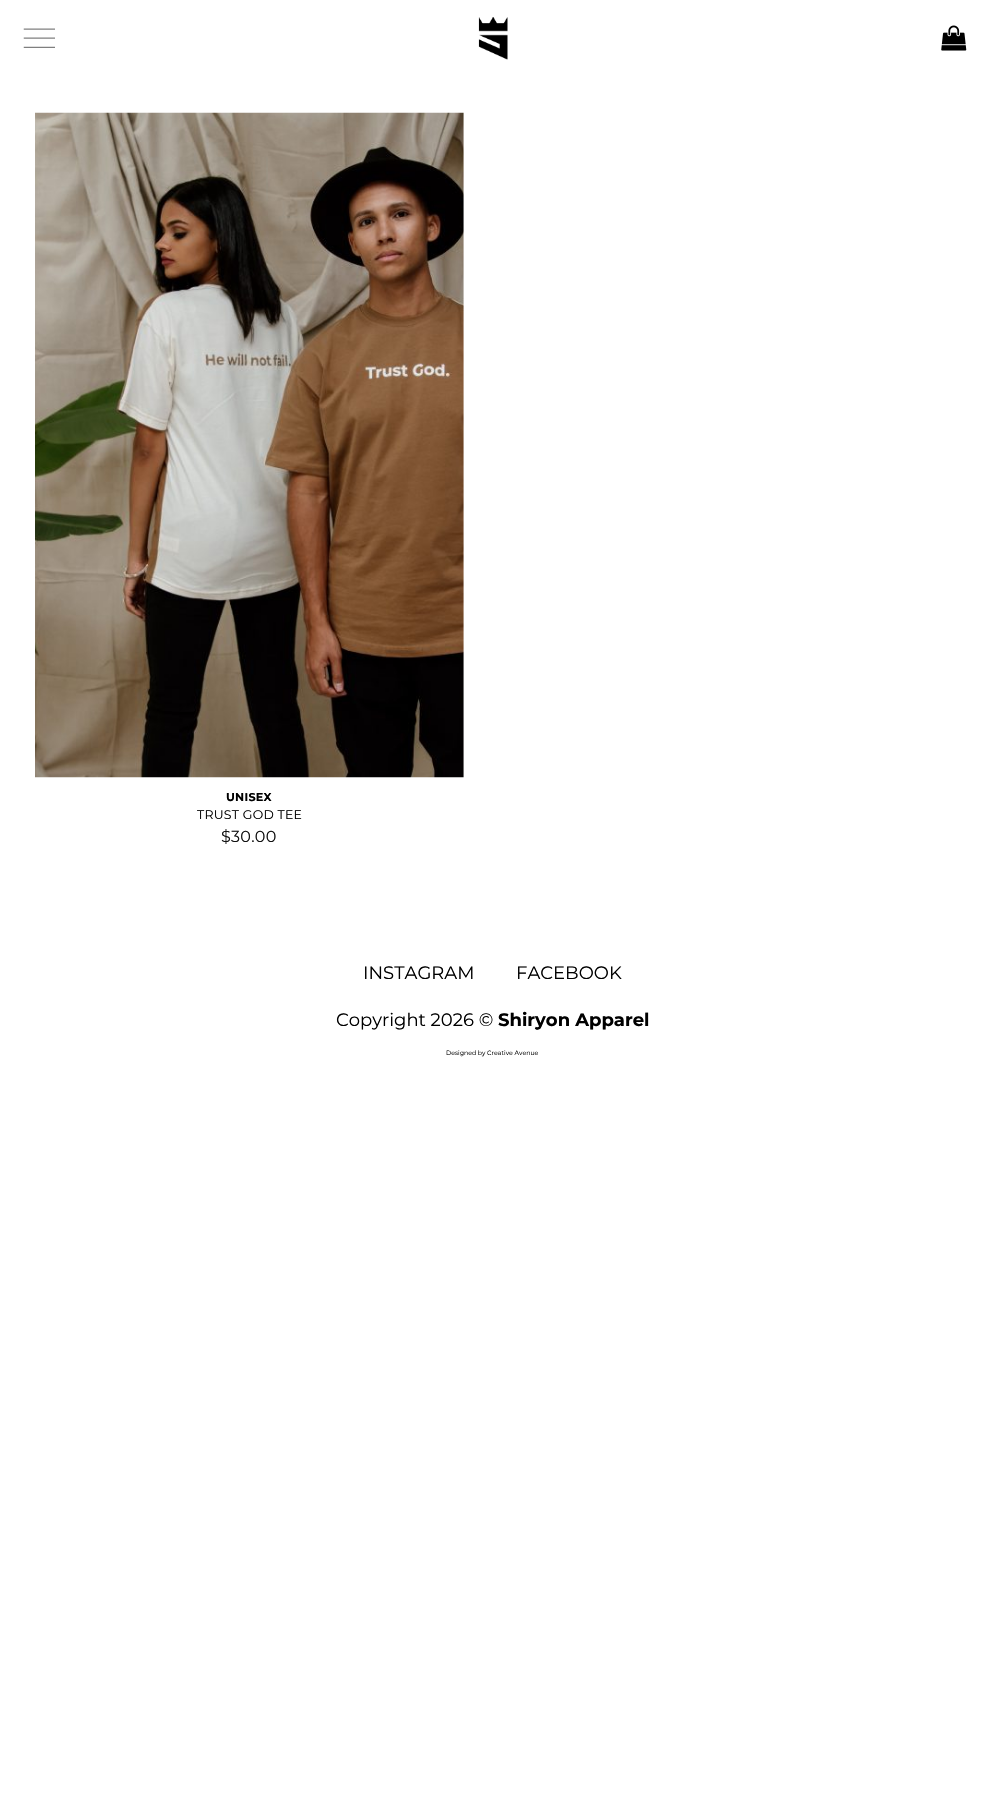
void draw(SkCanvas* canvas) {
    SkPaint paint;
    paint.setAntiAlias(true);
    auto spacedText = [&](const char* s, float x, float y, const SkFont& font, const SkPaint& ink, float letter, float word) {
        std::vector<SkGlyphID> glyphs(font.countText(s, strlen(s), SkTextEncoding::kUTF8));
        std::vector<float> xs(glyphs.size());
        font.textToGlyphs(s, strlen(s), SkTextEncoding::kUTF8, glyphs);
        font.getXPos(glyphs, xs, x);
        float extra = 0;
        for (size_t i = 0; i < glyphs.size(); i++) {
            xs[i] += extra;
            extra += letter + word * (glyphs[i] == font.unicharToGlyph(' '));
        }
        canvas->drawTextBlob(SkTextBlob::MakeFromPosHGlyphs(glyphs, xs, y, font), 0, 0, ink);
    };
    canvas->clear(0xFFFFFFFF);
    canvas->drawImageRect(SkImages::DeferredFromEncodedData(SkData::MakeFromFileName("img1.png")), SkRect::MakeXYWH(23, 28, 32, 20), SkSamplingOptions());
    canvas->drawImageRect(SkImages::DeferredFromEncodedData(SkData::MakeFromFileName("img2.png")), SkRect::MakeXYWH(478, 17, 30, 43), SkSamplingOptions());
    canvas->drawImageRect(SkImages::DeferredFromEncodedData(SkData::MakeFromFileName("img3.png")), SkRect::MakeXYWH(941, 25, 26, 26), SkSamplingOptions());
    canvas->drawImageRect(SkImages::DeferredFromEncodedData(SkData::MakeFromFileName("img4.png")), SkRect::MakeXYWH(35, 112, 429, 666), SkSamplingOptions());
    SkFont font1(fontMgr->matchFamilyStyle("Montserrat", SkFontStyle::Bold()), 11.25f);
    font1.setSubpixel(true);
    paint.setColor(0xFF000000);
    spacedText("UNISEX", 226, 801, font1, paint, 0.25f, 0);
    SkFont font2(fontMgr->matchFamilyStyle("Montserrat", SkFontStyle(100, SkFontStyle::kNormal_Width, SkFontStyle::kUpright_Slant)), 12.5f);
    font2.setSubpixel(true);
    spacedText("TRUST GOD TEE", 197, 819, font2, paint, 0.25f, 0);
    SkFont font3(fontMgr->matchFamilyStyle("Montserrat", SkFontStyle(100, SkFontStyle::kNormal_Width, SkFontStyle::kUpright_Slant)), 16);
    font3.setSubpixel(true);
    paint.setColor(0xFF111111);
    spacedText("$30.00", 221, 842, font3, paint, 0.25f, 0);
    SkFont font4(fontMgr->matchFamilyStyle("Montserrat", SkFontStyle(100, SkFontStyle::kNormal_Width, SkFontStyle::kUpright_Slant)), 18);
    font4.setSubpixel(true);
    paint.setColor(0xFF000000);
    canvas->drawString("INSTAGRAM", 363, 979, font4, paint);
    canvas->drawString("FACEBOOK", 516, 979, font4, paint);
    canvas->drawString("Copyright 2026 ©", 336, 1026, font4, paint);
    SkFont font5(fontMgr->matchFamilyStyle("Montserrat", SkFontStyle::Bold()), 18);
    font5.setSubpixel(true);
    canvas->drawString("Shiryon Apparel", 498, 1026, font5, paint);
    SkFont font6(fontMgr->matchFamilyStyle("Montserrat", SkFontStyle(100, SkFontStyle::kNormal_Width, SkFontStyle::kUpright_Slant)), 6.25f);
    font6.setSubpixel(true);
    canvas->drawString("Designed by Creative Avenue", 446, 1055, font6, paint);
}
